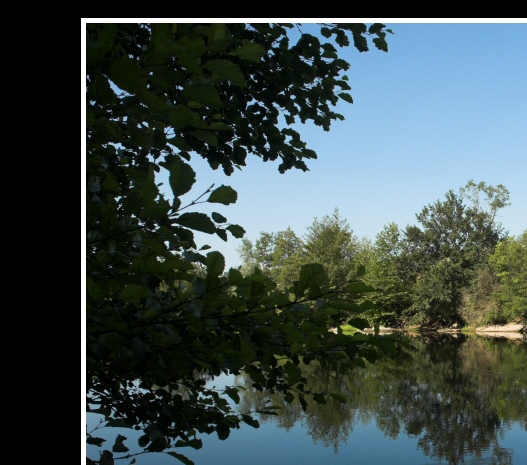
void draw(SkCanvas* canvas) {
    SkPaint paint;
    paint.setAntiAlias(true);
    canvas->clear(0xFF000000);
    canvas->drawImageRect(SkImages::DeferredFromEncodedData(SkData::MakeFromFileName("img1.png")), SkRect::MakeXYWH(81, 18, 446, 447), SkSamplingOptions());
}
